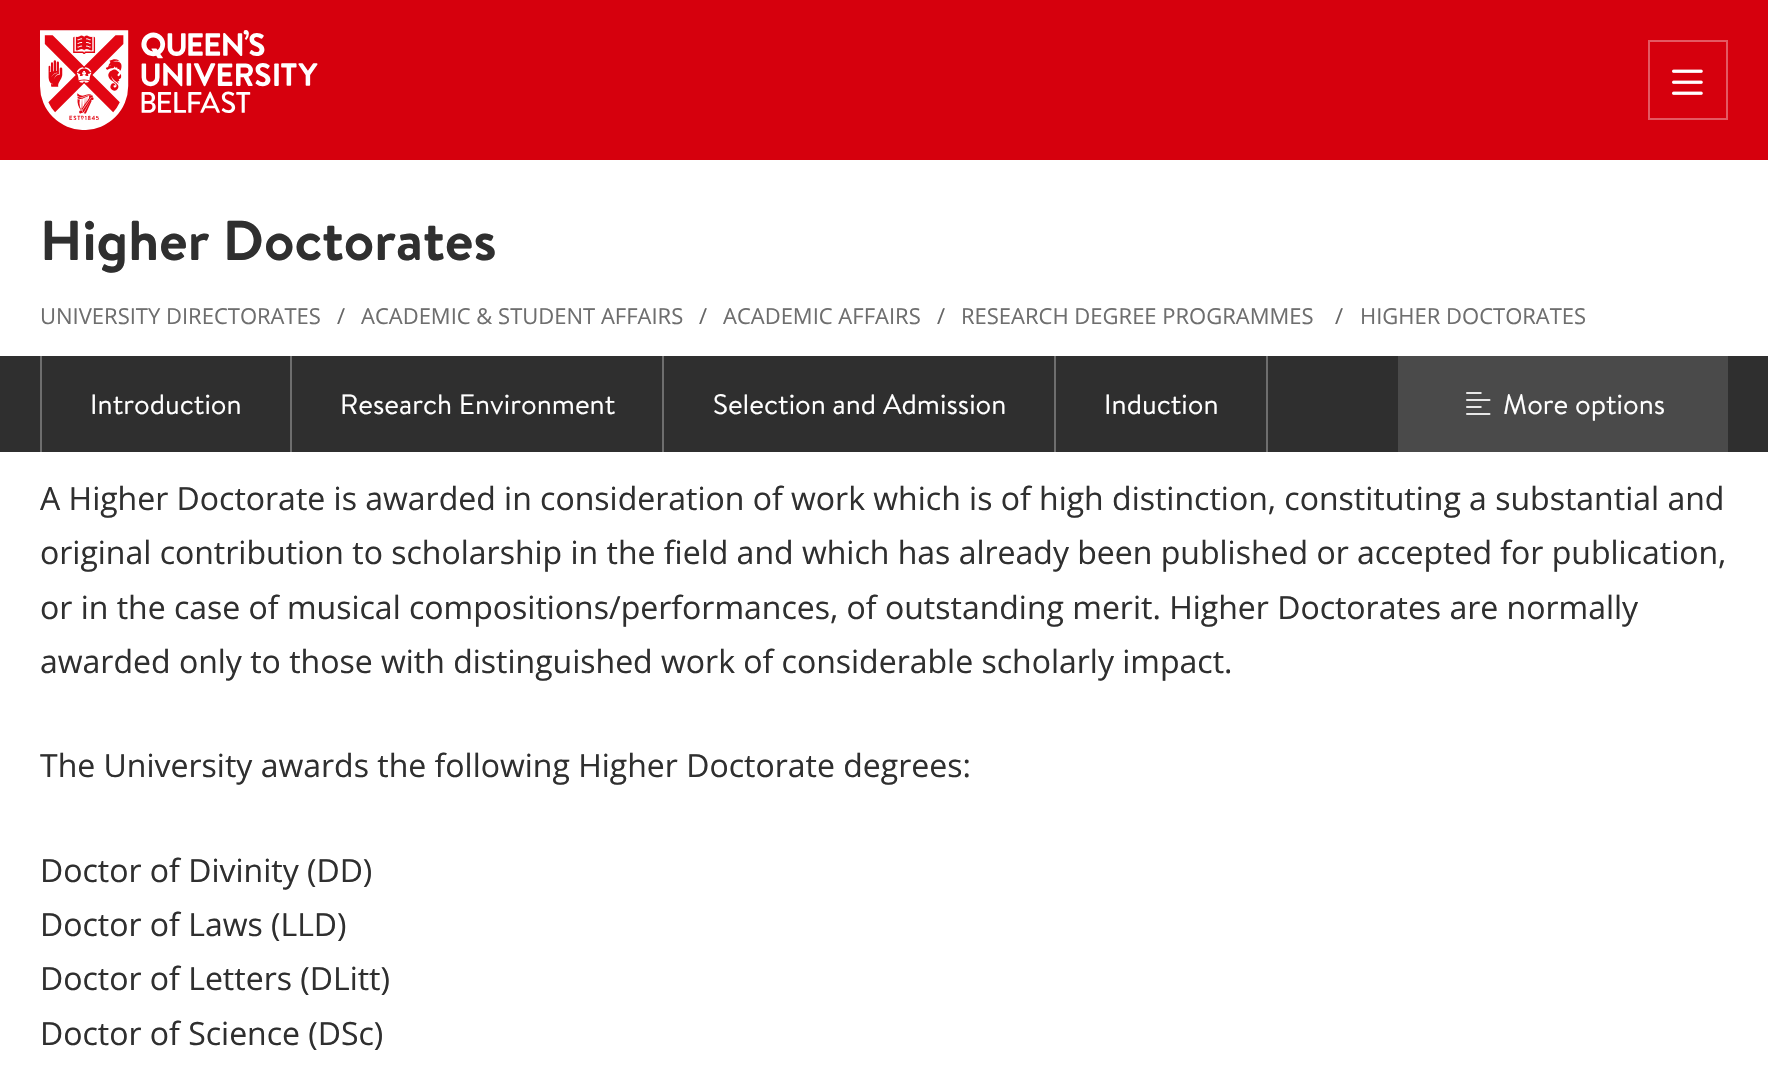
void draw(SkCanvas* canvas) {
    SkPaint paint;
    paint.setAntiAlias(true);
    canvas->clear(0xFFFFFFFF);
    paint.setColor(0xFFD6000D);
    canvas->drawRect(SkRect::MakeXYWH(0, 0, 1768, 160), paint);
    canvas->drawImageRect(SkImages::DeferredFromEncodedData(SkData::MakeFromFileName("img1.png")), SkRect::MakeXYWH(40, 30, 278, 100), SkSamplingOptions());
    paint.setStyle(SkPaint::kStroke_Style);
    paint.setStrokeWidth(2);
    paint.setColor(0xFFE45962);
    canvas->drawRect(SkRect::MakeXYWH(1649, 41, 78, 78), paint);
    canvas->drawImageRect(SkImages::DeferredFromEncodedData(SkData::MakeFromFileName("img2.png")), SkRect::MakeXYWH(1672, 69, 31, 26), SkSamplingOptions());
    SkFont font1(fontMgr->matchFamilyStyle("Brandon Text", SkFontStyle::Bold()), 56);
    font1.setSubpixel(true);
    paint.setStyle(SkPaint::kFill_Style);
    paint.setColor(0xFF2F2F2F);
    canvas->drawString("Higher Doctorates", 40, 260, font1, paint);
    SkFont font2(fontMgr->matchFamilyStyle("Open Sans", SkFontStyle::Normal()), 22);
    font2.setSubpixel(true);
    paint.setColor(0xFF6E6E6E);
    canvas->drawString("UNIVERSITY DIRECTORATES", 40, 324, font2, paint);
    paint.setColor(0xFF666666);
    canvas->drawString("/", 337, 324, font2, paint);
    paint.setColor(0xFF6E6E6E);
    canvas->drawString("ACADEMIC & STUDENT AFFAIRS", 361, 324, font2, paint);
    paint.setColor(0xFF666666);
    canvas->drawString("/", 699, 324, font2, paint);
    paint.setColor(0xFF6E6E6E);
    canvas->drawString("ACADEMIC AFFAIRS", 723, 324, font2, paint);
    paint.setColor(0xFF666666);
    canvas->drawString("/", 937, 324, font2, paint);
    paint.setColor(0xFF6E6E6E);
    canvas->drawString("RESEARCH DEGREE PROGRAMMES", 961, 324, font2, paint);
    paint.setColor(0xFF666666);
    canvas->drawString("/", 1335, 324, font2, paint);
    paint.setColor(0xFF6E6E6E);
    canvas->drawString("HIGHER DOCTORATES", 1360, 324, font2, paint);
    paint.setColor(0xFF2F2F2F);
    canvas->drawRect(SkRect::MakeXYWH(0, 356, 1768, 96), paint);
    paint.setColor(0xFF6E6E6E);
    canvas->drawRect(SkRect::MakeXYWH(40, 356, 2, 96), paint);
    SkFont font3(fontMgr->matchFamilyStyle("Brandon Text", SkFontStyle::Normal()), 28);
    font3.setSubpixel(true);
    paint.setColor(0xFFFFFFFF);
    canvas->drawString("Introduction", 90, 414, font3, paint);
    paint.setColor(0xFF6E6E6E);
    canvas->drawRect(SkRect::MakeXYWH(290, 356, 2, 96), paint);
    paint.setColor(0xFFFFFFFF);
    canvas->drawString("Research Environment", 340, 414, font3, paint);
    paint.setColor(0xFF6E6E6E);
    canvas->drawRect(SkRect::MakeXYWH(662, 356, 2, 96), paint);
    paint.setColor(0xFFFFFFFF);
    canvas->drawString("Selection and Admission", 713, 414, font3, paint);
    paint.setColor(0xFF6E6E6E);
    canvas->drawRect(SkRect::MakeXYWH(1266, 356, 2, 96), paint);
    canvas->drawRect(SkRect::MakeXYWH(1054, 356, 2, 96), paint);
    paint.setColor(0xFFFFFFFF);
    canvas->drawString("Induction", 1104, 414, font3, paint);
    paint.setColor(0xFF4A4A4A);
    canvas->drawRect(SkRect::MakeXYWH(1398, 356, 330, 96), paint);
    canvas->drawImageRect(SkImages::DeferredFromEncodedData(SkData::MakeFromFileName("img3.png")), SkRect::MakeXYWH(1466, 392, 25, 23), SkSamplingOptions());
    paint.setColor(0xFFFFFFFF);
    canvas->drawString("More options", 1503, 414, font3, paint);
    SkFont font4(fontMgr->matchFamilyStyle("Open Sans", SkFontStyle::Normal()), 32);
    font4.setSubpixel(true);
    paint.setColor(0xFF2F2F2F);
    canvas->drawString("A Higher Doctorate is awarded in consideration of work which is of high distinction, constituting a substantial and", 40, 510, font4, paint);
    canvas->drawString("original contribution to scholarship in the field and which has already been published or accepted for publication,", 40, 564, font4, paint);
    canvas->drawString("or in the case of musical compositions/performances, of outstanding merit. Higher Doctorates are normally", 40, 619, font4, paint);
    canvas->drawString("awarded only to those with distinguished work of considerable scholarly impact.", 40, 673, font4, paint);
    canvas->drawString("The University awards the following Higher Doctorate degrees:", 40, 777, font4, paint);
    canvas->drawString("Doctor of Divinity (DD)", 40, 882, font4, paint);
    canvas->drawString("Doctor of Laws (LLD)", 40, 936, font4, paint);
    canvas->drawString("Doctor of Letters (DLitt)", 40, 990, font4, paint);
    canvas->drawString("Doctor of Science (DSc)", 40, 1045, font4, paint);
}
